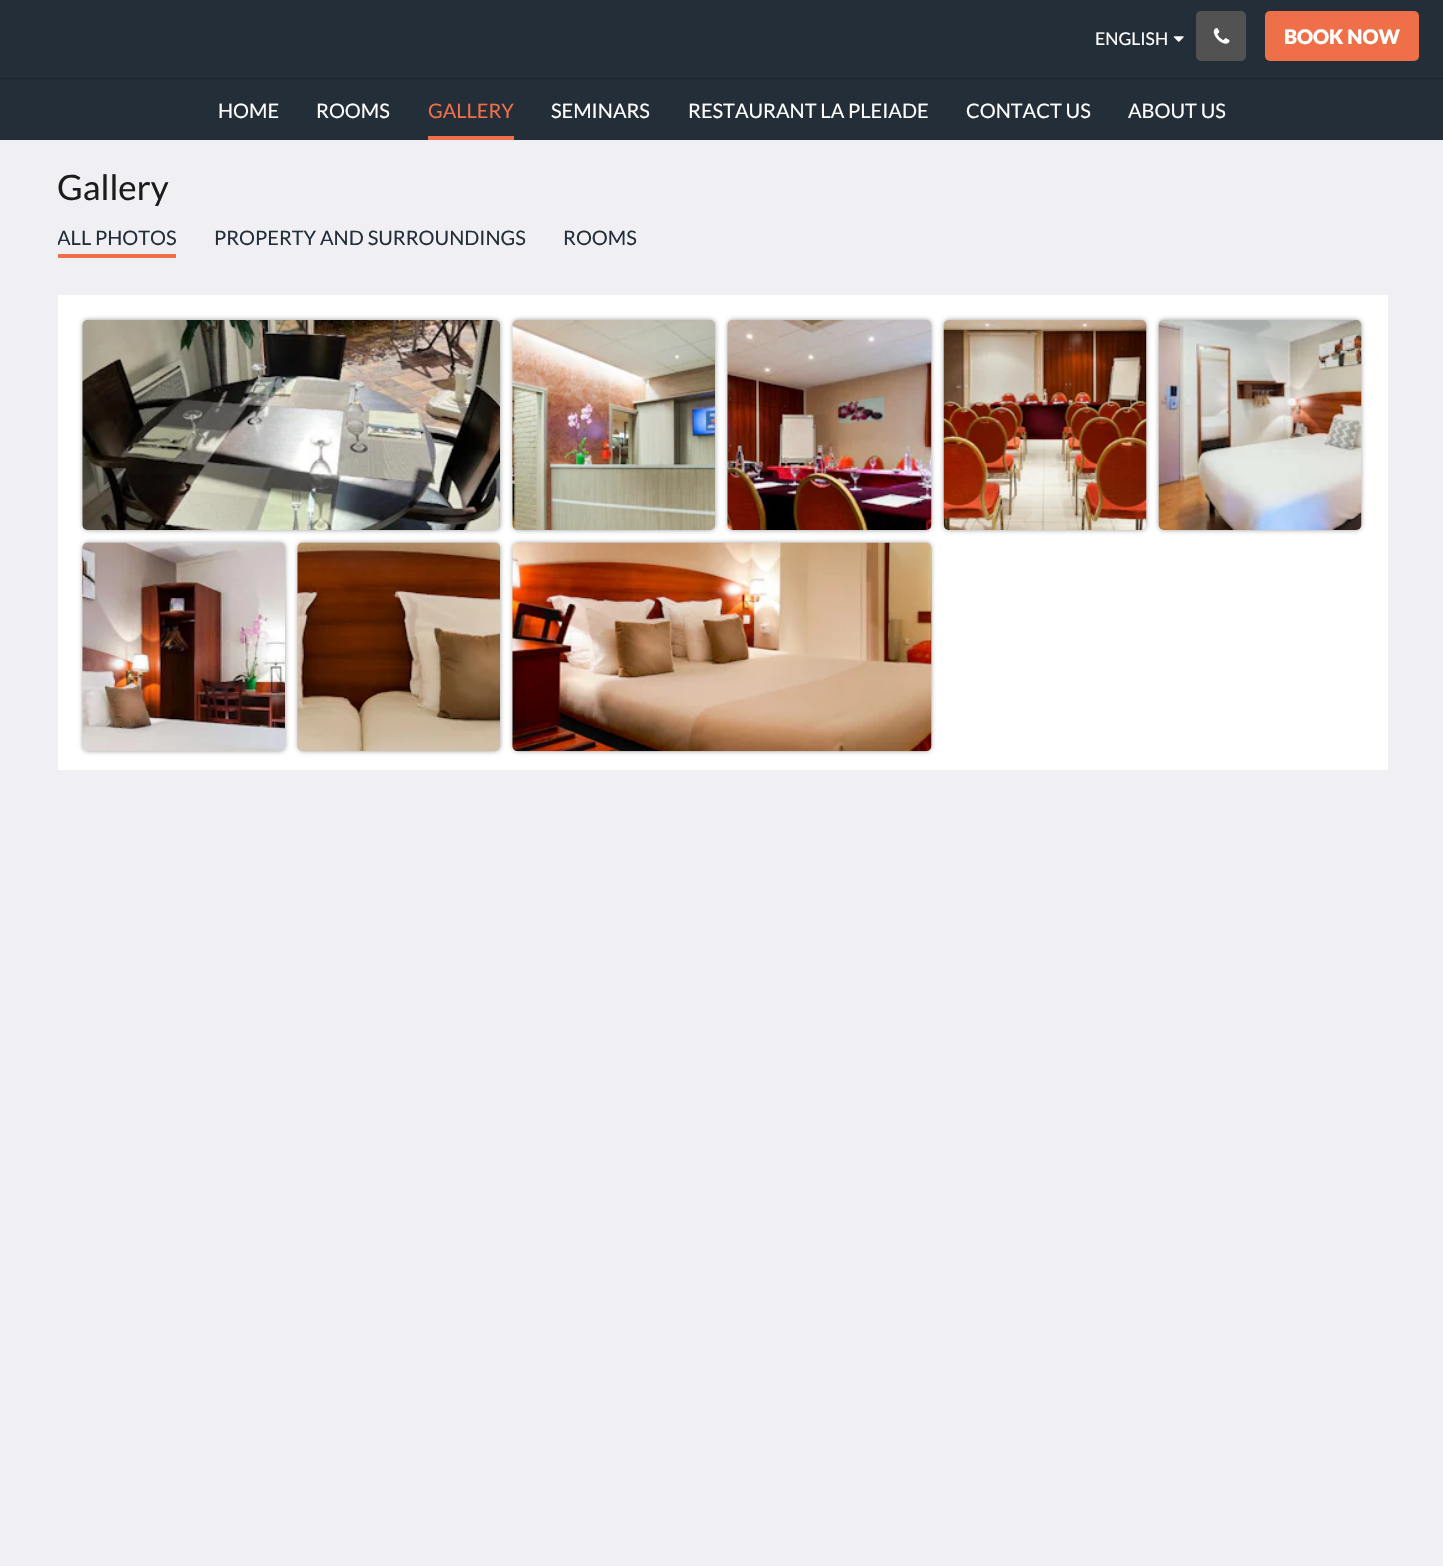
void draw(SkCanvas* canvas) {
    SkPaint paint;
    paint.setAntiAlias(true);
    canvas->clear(0xFFEFEFF4);
    paint.setColor(0xFF232E39);
    canvas->drawRect(SkRect::MakeXYWH(0, 0, 1443, 78), paint);
    SkFont font1(fontMgr->matchFamilyStyle("Lato", SkFontStyle::Normal()), 17.5f);
    font1.setSubpixel(true);
    paint.setColor(0xFFFFFFFF);
    canvas->drawString("ENGLISH", 1095, 45, font1, paint);
    canvas->drawImageRect(SkImages::DeferredFromEncodedData(SkData::MakeFromFileName("img1.png")), SkRect::MakeXYWH(1173, 36, 11, 6), SkSamplingOptions());
    paint.setColor(0xFF525252);
    canvas->drawRoundRect(SkRect::MakeXYWH(1196, 11, 50, 50), 5, 5, paint);
    canvas->drawImageRect(SkImages::DeferredFromEncodedData(SkData::MakeFromFileName("img2.png")), SkRect::MakeXYWH(1213, 28, 17, 16), SkSamplingOptions());
    paint.setColor(0xFFEE6F48);
    canvas->drawRoundRect(SkRect::MakeXYWH(1265, 11, 154, 50), 5, 5, paint);
    SkFont font2(fontMgr->matchFamilyStyle("Lato", SkFontStyle(900, SkFontStyle::kNormal_Width, SkFontStyle::kUpright_Slant)), 20);
    font2.setSubpixel(true);
    paint.setColor(0xFFFFFFFF);
    canvas->drawString("BOOK NOW", 1284, 44, font2, paint);
    paint.setColor(0xFF232E39);
    canvas->drawRect(SkRect::MakeXYWH(0, 79, 1443, 61), paint);
    paint.setColor(0xFF1C252E);
    canvas->drawRect(SkRect::MakeXYWH(0, 78, 1443, 1), paint);
    SkFont font3(fontMgr->matchFamilyStyle("Lato", SkFontStyle::Normal()), 20);
    font3.setSubpixel(true);
    paint.setColor(0xFFFFFFFF);
    canvas->drawString("HOME", 218, 118, font3, paint);
    canvas->drawString("ROOMS", 316, 118, font3, paint);
    paint.setColor(0xFFEE6F48);
    canvas->drawRect(SkRect::MakeXYWH(428, 136, 86, 4), paint);
    canvas->drawString("GALLERY", 428, 118, font3, paint);
    paint.setColor(0xFFFFFFFF);
    canvas->drawString("SEMINARS", 551, 118, font3, paint);
    canvas->drawString("RESTAURANT LA PLEIADE", 688, 118, font3, paint);
    canvas->drawString("CONTACT US", 966, 118, font3, paint);
    canvas->drawString("ABOUT US", 1128, 118, font3, paint);
    SkFont font4(fontMgr->matchFamilyStyle("Lato", SkFontStyle::Normal()), 35);
    font4.setSubpixel(true);
    paint.setColor(0xFF1C1C1C);
    canvas->drawString("Gallery", 57, 200, font4, paint);
    paint.setColor(0xFFEE6F48);
    canvas->drawRect(SkRect::MakeXYWH(58, 254, 118, 4), paint);
    canvas->save();
    canvas->clipRect(SkRect::MakeXYWH(58, 206, 1330, 64));
    paint.setColor(0xFF232E39);
    canvas->drawString("ALL PHOTOS", 57, 245, font3, paint);
    canvas->restore();
    canvas->drawString("PROPERTY AND SURROUNDINGS", 214, 245, font3, paint);
    canvas->drawString("ROOMS", 563, 245, font3, paint);
    paint.setColor(0xFFFFFFFF);
    canvas->drawRect(SkRect::MakeXYWH(58, 295, 1330, 475), paint);
    paint.setColor(0x66000000);
    paint.setMaskFilter(SkMaskFilter::MakeBlur(kNormal_SkBlurStyle, 2.5f));
    canvas->drawRoundRect(SkRect::MakeXYWH(83, 320, 417, 210), 5, 5, paint);
    paint.setMaskFilter(nullptr);
    canvas->drawImageRect(SkImages::DeferredFromEncodedData(SkData::MakeFromFileName("img3.png")), SkRect::MakeXYWH(82, 320, 418, 210), SkSamplingOptions());
    paint.setMaskFilter(SkMaskFilter::MakeBlur(kNormal_SkBlurStyle, 2.5f));
    canvas->drawRoundRect(SkRect::MakeXYWH(513, 320, 202, 210), 5, 5, paint);
    paint.setMaskFilter(nullptr);
    canvas->drawImageRect(SkImages::DeferredFromEncodedData(SkData::MakeFromFileName("img4.png")), SkRect::MakeXYWH(512, 320, 203, 210), SkSamplingOptions());
    paint.setMaskFilter(SkMaskFilter::MakeBlur(kNormal_SkBlurStyle, 2.5f));
    canvas->drawRoundRect(SkRect::MakeXYWH(728, 320, 203, 210), 5, 5, paint);
    paint.setMaskFilter(nullptr);
    canvas->drawImageRect(SkImages::DeferredFromEncodedData(SkData::MakeFromFileName("img5.png")), SkRect::MakeXYWH(727, 320, 205, 210), SkSamplingOptions());
    paint.setMaskFilter(SkMaskFilter::MakeBlur(kNormal_SkBlurStyle, 2.5f));
    canvas->drawRoundRect(SkRect::MakeXYWH(944, 320, 202, 210), 5, 5, paint);
    paint.setMaskFilter(nullptr);
    canvas->drawImageRect(SkImages::DeferredFromEncodedData(SkData::MakeFromFileName("img6.png")), SkRect::MakeXYWH(943, 320, 204, 210), SkSamplingOptions());
    paint.setMaskFilter(SkMaskFilter::MakeBlur(kNormal_SkBlurStyle, 2.5f));
    canvas->drawRoundRect(SkRect::MakeXYWH(1159, 320, 202, 210), 5, 5, paint);
    paint.setMaskFilter(nullptr);
    canvas->drawImageRect(SkImages::DeferredFromEncodedData(SkData::MakeFromFileName("img7.png")), SkRect::MakeXYWH(1158, 320, 204, 210), SkSamplingOptions());
    paint.setMaskFilter(SkMaskFilter::MakeBlur(kNormal_SkBlurStyle, 2.5f));
    canvas->drawRoundRect(SkRect::MakeXYWH(83, 543, 202, 208), 5, 5, paint);
    paint.setMaskFilter(nullptr);
    canvas->drawImageRect(SkImages::DeferredFromEncodedData(SkData::MakeFromFileName("img8.png")), SkRect::MakeXYWH(82, 542, 203, 209), SkSamplingOptions());
    paint.setMaskFilter(SkMaskFilter::MakeBlur(kNormal_SkBlurStyle, 2.5f));
    canvas->drawRoundRect(SkRect::MakeXYWH(298, 543, 202, 208), 5, 5, paint);
    paint.setMaskFilter(nullptr);
    canvas->drawImageRect(SkImages::DeferredFromEncodedData(SkData::MakeFromFileName("img9.png")), SkRect::MakeXYWH(297, 542, 203, 210), SkSamplingOptions());
    paint.setMaskFilter(SkMaskFilter::MakeBlur(kNormal_SkBlurStyle, 2.5f));
    canvas->drawRoundRect(SkRect::MakeXYWH(513, 543, 418, 208), 5, 5, paint);
    paint.setMaskFilter(nullptr);
    canvas->drawImageRect(SkImages::DeferredFromEncodedData(SkData::MakeFromFileName("img10.png")), SkRect::MakeXYWH(512, 542, 420, 210), SkSamplingOptions());
}
